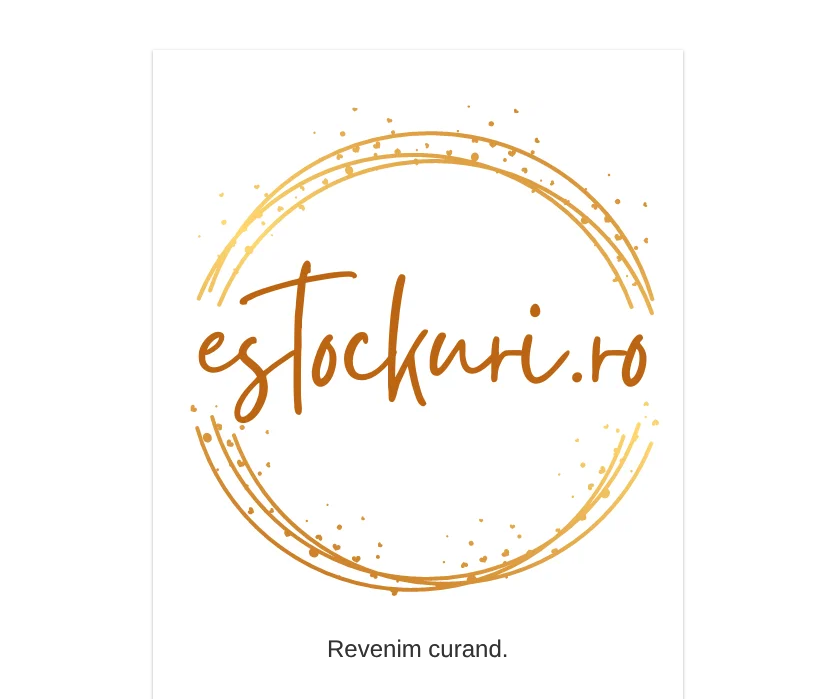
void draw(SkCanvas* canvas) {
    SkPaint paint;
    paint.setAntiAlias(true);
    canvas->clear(0xFFFFFFFF);
    canvas->save();
    canvas->clipPath(SkPathBuilder(SkPathFillType::kEvenOdd).moveTo(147, 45).lineTo(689, 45).lineTo(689, 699).lineTo(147, 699).close().moveTo(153, 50).lineTo(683, 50).lineTo(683, 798).lineTo(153, 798).close().detach(), true);
    paint.setColor(0x4D000000);
    paint.setMaskFilter(SkMaskFilter::MakeBlur(kNormal_SkBlurStyle, 1.5f));
    canvas->drawRect(SkRect::MakeXYWH(153, 51, 530, 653), paint);
    paint.setMaskFilter(nullptr);
    canvas->restore();
    canvas->drawImageRect(SkImages::DeferredFromEncodedData(SkData::MakeFromFileName("img1.png")), SkRect::MakeXYWH(184, 100, 479, 497), SkSamplingOptions());
    SkFont font1(fontMgr->matchFamilyStyle("Liberation Sans", SkFontStyle::Normal()), 24);
    font1.setSubpixel(true);
    paint.setColor(0xFF333333);
    canvas->drawString("Revenim curand.", 327, 657, font1, paint);
}
